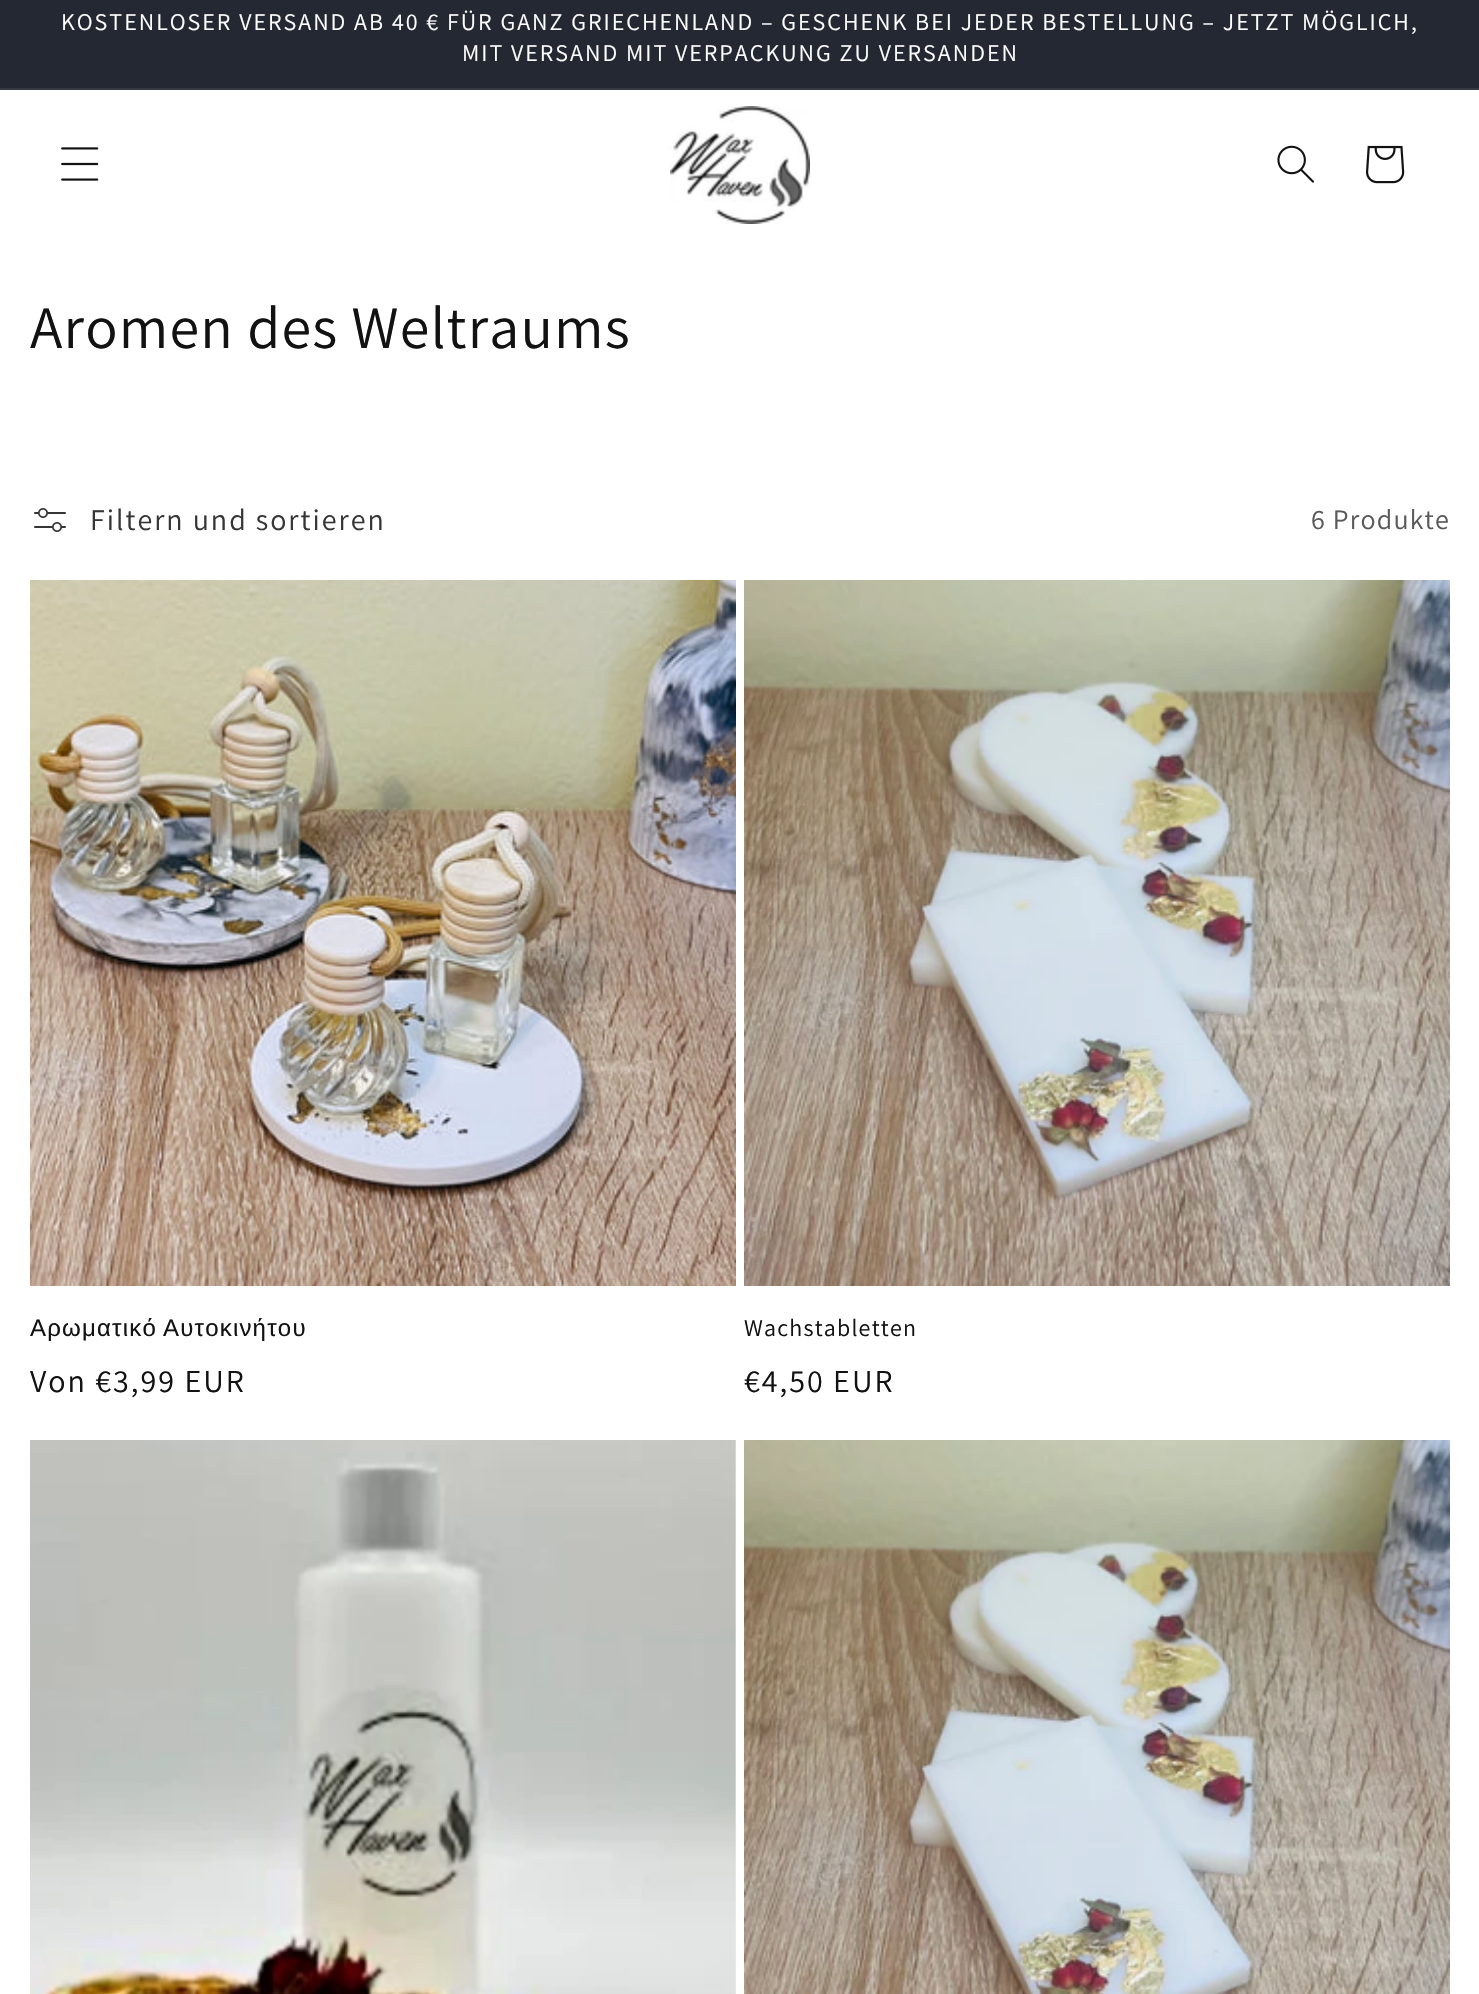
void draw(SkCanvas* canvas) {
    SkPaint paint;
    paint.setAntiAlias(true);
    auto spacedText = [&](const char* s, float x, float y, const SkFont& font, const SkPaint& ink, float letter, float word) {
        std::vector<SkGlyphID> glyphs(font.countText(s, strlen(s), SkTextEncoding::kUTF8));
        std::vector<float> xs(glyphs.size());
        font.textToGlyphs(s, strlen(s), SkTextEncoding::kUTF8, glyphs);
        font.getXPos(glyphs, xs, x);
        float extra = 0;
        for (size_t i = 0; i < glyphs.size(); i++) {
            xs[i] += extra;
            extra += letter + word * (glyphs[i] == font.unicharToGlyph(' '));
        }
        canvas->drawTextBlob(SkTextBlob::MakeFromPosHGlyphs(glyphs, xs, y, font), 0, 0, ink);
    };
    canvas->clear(0xFFFFFFFF);
    paint.setColor(0xFF242833);
    canvas->drawRect(SkRect::MakeXYWH(0, 0, 1479, 88), paint);
    paint.setColor(0xFF363943);
    canvas->drawRect(SkRect::MakeXYWH(0, 88, 1479, 2), paint);
    SkFont font1(fontMgr->matchFamilyStyle("Assistant", SkFontStyle::Normal()), 24);
    font1.setSubpixel(true);
    paint.setColor(0xFFFFFFFF);
    spacedText("KOSTENLOSER VERSAND AB 40 € FÜR GANZ GRIECHENLAND – GESCHENK BEI JEDER BESTELLUNG – JETZT MÖGLICH,", 61, 30, font1, paint, 2, 0);
    spacedText("MIT VERSAND MIT VERPACKUNG ZU VERSANDEN", 462, 61, font1, paint, 2, 0);
    canvas->drawImageRect(SkImages::DeferredFromEncodedData(SkData::MakeFromFileName("img1.png")), SkRect::MakeXYWH(61, 147, 38, 34), SkSamplingOptions());
    canvas->drawImageRect(SkImages::DeferredFromEncodedData(SkData::MakeFromFileName("img2.png")), SkRect::MakeXYWH(670, 106, 140, 118), SkSamplingOptions());
    canvas->drawImageRect(SkImages::DeferredFromEncodedData(SkData::MakeFromFileName("img3.png")), SkRect::MakeXYWH(1277, 145, 37, 38), SkSamplingOptions());
    canvas->drawImageRect(SkImages::DeferredFromEncodedData(SkData::MakeFromFileName("img4.png")), SkRect::MakeXYWH(1366, 145, 39, 39), SkSamplingOptions());
    SkFont font2(fontMgr->matchFamilyStyle("Assistant", SkFontStyle::Normal()), 60);
    font2.setSubpixel(true);
    paint.setColor(0xFF121212);
    spacedText("Aromen des Weltraums", 30, 348, font2, paint, 1.2f, 0);
    canvas->drawImageRect(SkImages::DeferredFromEncodedData(SkData::MakeFromFileName("img5.png")), SkRect::MakeXYWH(34, 508, 32, 24), SkSamplingOptions());
    SkFont font3(fontMgr->matchFamilyStyle("Assistant", SkFontStyle::Normal()), 30);
    font3.setSubpixel(true);
    paint.setColor(0xFF363636);
    spacedText("Filtern und sortieren", 90, 530, font3, paint, 2, 0);
    SkFont font4(fontMgr->matchFamilyStyle("Assistant", SkFontStyle::Normal()), 28);
    font4.setSubpixel(true);
    paint.setColor(0xFF595959);
    spacedText("6 Produkte", 1311, 529, font4, paint, 1.2f, 0);
    canvas->drawImageRect(SkImages::DeferredFromEncodedData(SkData::MakeFromFileName("img6.png")), SkRect::MakeXYWH(30, 580, 706, 706), SkSamplingOptions());
    SkFont font5(fontMgr->matchFamilyStyle("Liberation Sans", SkFontStyle::Normal()), 24);
    font5.setSubpixel(true);
    paint.setColor(0xFF121212);
    spacedText("Αρωματικό Αυτοκινήτου", 30, 1336, font5, paint, 1.2f, -2);
    SkFont font6(fontMgr->matchFamilyStyle("Assistant", SkFontStyle::Normal()), 32);
    font6.setSubpixel(true);
    spacedText("Von €3,99 EUR", 30, 1392, font6, paint, 2, 0);
    canvas->drawImageRect(SkImages::DeferredFromEncodedData(SkData::MakeFromFileName("img7.png")), SkRect::MakeXYWH(744, 580, 706, 706), SkSamplingOptions());
    spacedText("Wachstabletten", 744, 1336, font1, paint, 1.2f, 0);
    spacedText("€4,50 EUR", 744, 1392, font6, paint, 2, 0);
    paint.setColor(0xFFF3F3F3);
    canvas->drawRect(SkRect::MakeXYWH(735, 1440, 1, 554), paint);
    canvas->drawImageRect(SkImages::DeferredFromEncodedData(SkData::MakeFromFileName("img8.png")), SkRect::MakeXYWH(30, 1440, 706, 554), SkSamplingOptions());
    canvas->drawImageRect(SkImages::DeferredFromEncodedData(SkData::MakeFromFileName("img9.png")), SkRect::MakeXYWH(744, 1440, 706, 554), SkSamplingOptions());
}
